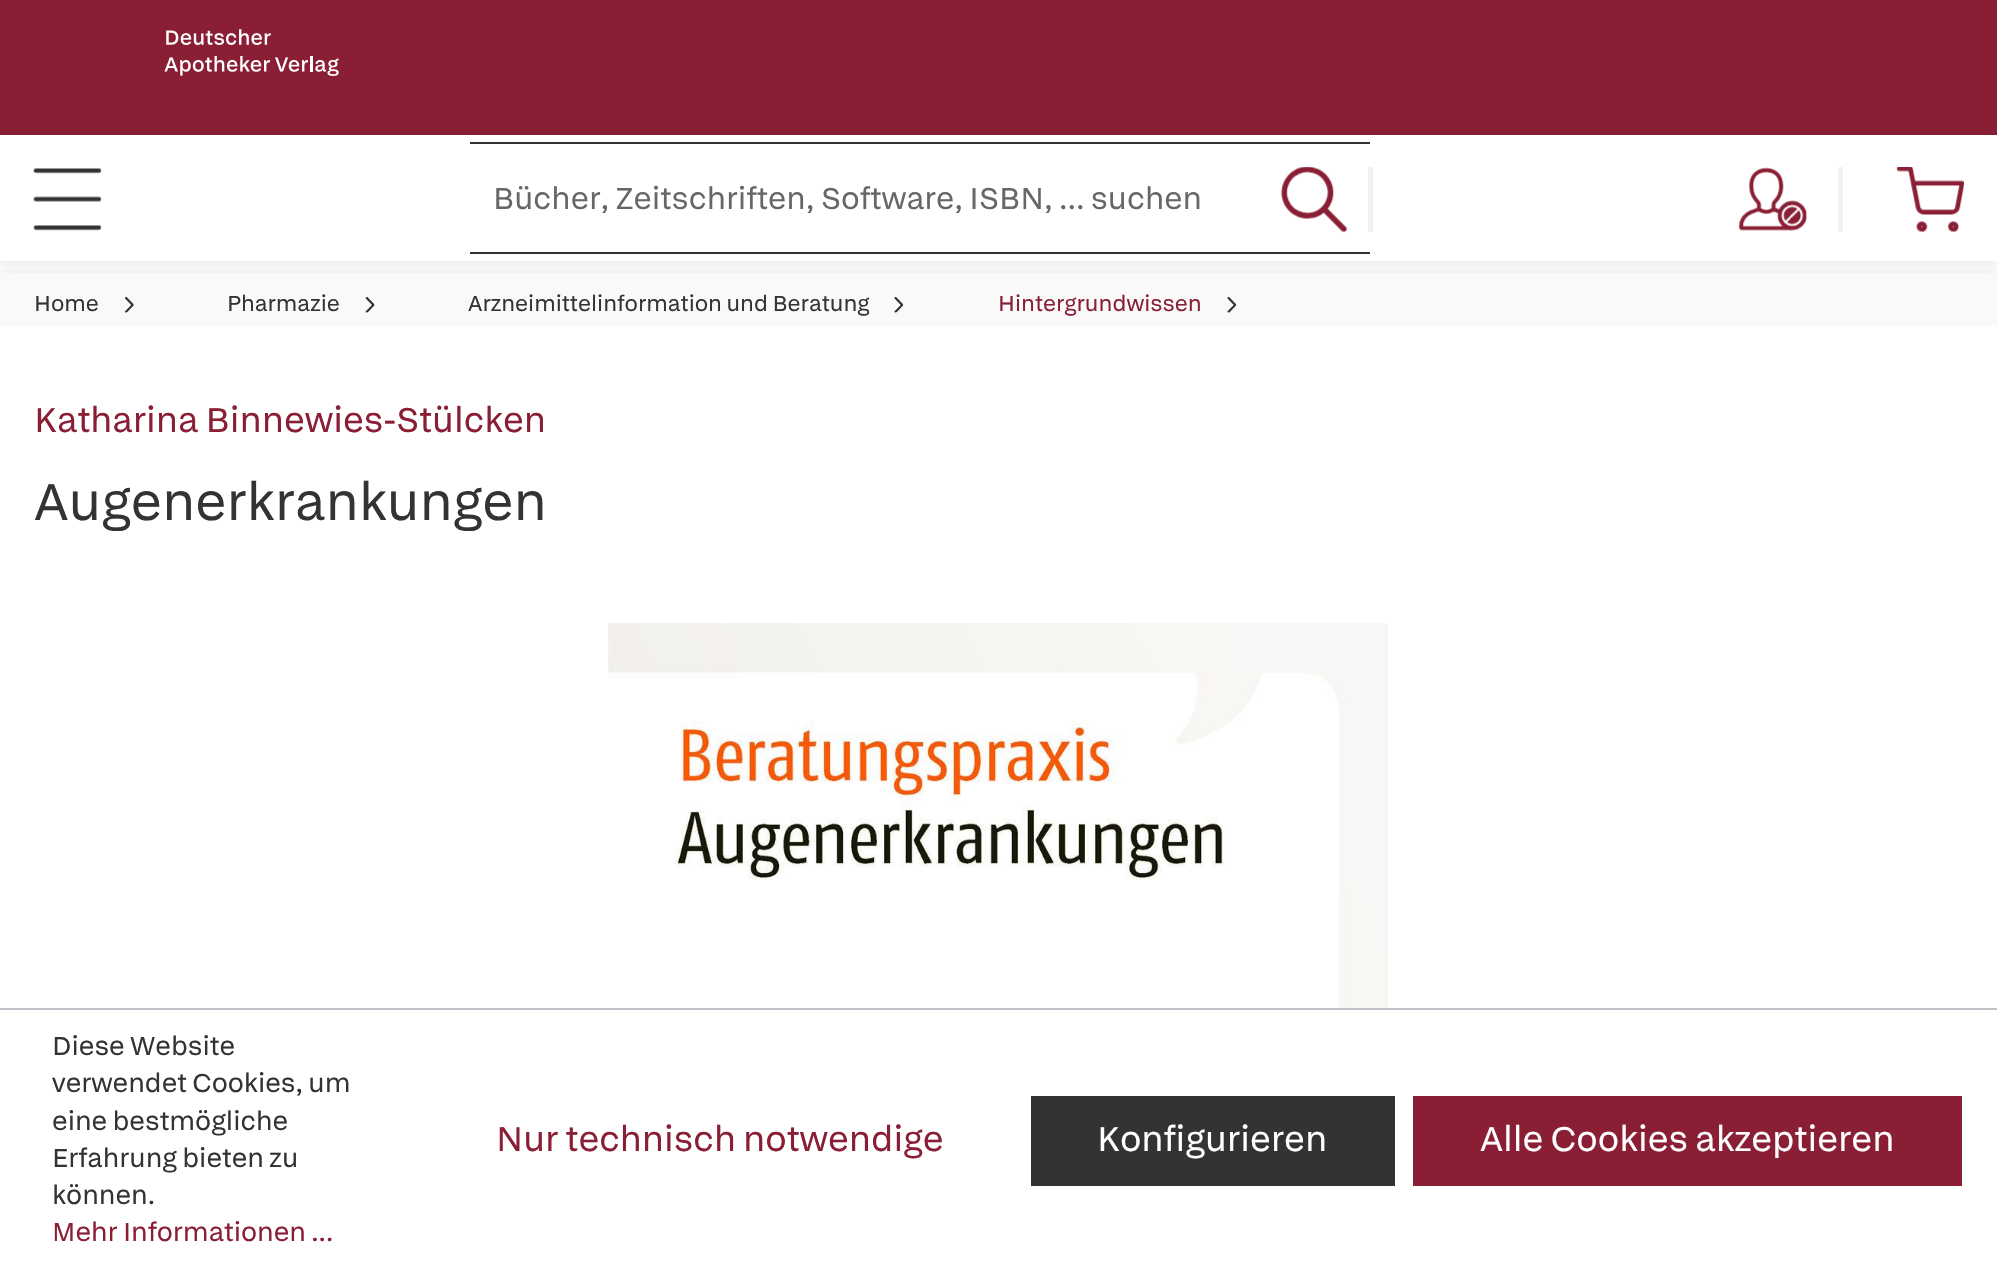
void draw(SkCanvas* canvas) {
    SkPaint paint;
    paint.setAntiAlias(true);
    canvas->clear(0xFFFFFFFF);
    paint.setColor(0xFFF9F9F9);
    canvas->drawRect(SkRect::MakeXYWH(0, 270, 1997, 56), paint);
    canvas->save();
    canvas->clipRect(SkRect::MakeXYWH(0, 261, 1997, 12));
    paint.setColor(0x14000000);
    paint.setMaskFilter(SkMaskFilter::MakeBlur(kNormal_SkBlurStyle, 7));
    canvas->drawRect(SkRect::MakeXYWH(0, 7, 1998, 261), paint);
    paint.setMaskFilter(nullptr);
    canvas->restore();
    paint.setColor(0xFF891E35);
    canvas->drawRect(SkRect::MakeXYWH(0, 0, 1997, 135), paint);
    canvas->drawImageRect(SkImages::DeferredFromEncodedData(SkData::MakeFromFileName("img1.png")), SkRect::MakeXYWH(164, 29, 175, 47), SkSamplingOptions());
    canvas->drawImageRect(SkImages::DeferredFromEncodedData(SkData::MakeFromFileName("img2.png")), SkRect::MakeXYWH(33, 168, 69, 63), SkSamplingOptions());
    paint.setColor(0xFF333333);
    canvas->drawRect(SkRect::MakeXYWH(470, 142, 900, 2), paint);
    canvas->drawRect(SkRect::MakeXYWH(470, 252, 900, 2), paint);
    SkFont font1(fontMgr->matchFamilyStyle("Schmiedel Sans", SkFontStyle::Normal()), 31.5f);
    font1.setSubpixel(true);
    paint.setColor(0xFF676767);
    canvas->drawString("Bücher, Zeitschriften, Software, ISBN, ... suchen", 493, 209, font1, paint);
    canvas->drawImageRect(SkImages::DeferredFromEncodedData(SkData::MakeFromFileName("img3.png")), SkRect::MakeXYWH(1281, 167, 67, 66), SkSamplingOptions());
    paint.setColor(0xFFF2F2F2);
    canvas->drawRect(SkRect::MakeXYWH(1368, 167, 5, 65), paint);
    canvas->drawImageRect(SkImages::DeferredFromEncodedData(SkData::MakeFromFileName("img4.png")), SkRect::MakeXYWH(1739, 167, 69, 64), SkSamplingOptions());
    canvas->drawRect(SkRect::MakeXYWH(1838, 167, 5, 65), paint);
    canvas->drawImageRect(SkImages::DeferredFromEncodedData(SkData::MakeFromFileName("img5.png")), SkRect::MakeXYWH(1896, 167, 68, 66), SkSamplingOptions());
    SkFont font2(fontMgr->matchFamilyStyle("Schmiedel Sans", SkFontStyle::Normal()), 22.5f);
    font2.setSubpixel(true);
    paint.setColor(0xFF333333);
    canvas->drawString("Home", 34, 311, font2, paint);
    canvas->drawImageRect(SkImages::DeferredFromEncodedData(SkData::MakeFromFileName("img6.png")), SkRect::MakeXYWH(125, 297, 9, 16), SkSamplingOptions());
    canvas->drawString("Pharmazie", 227, 311, font2, paint);
    canvas->drawImageRect(SkImages::DeferredFromEncodedData(SkData::MakeFromFileName("img7.png")), SkRect::MakeXYWH(365, 297, 10, 16), SkSamplingOptions());
    canvas->drawString("Arzneimittelinformation und Beratung", 468, 311, font2, paint);
    canvas->drawImageRect(SkImages::DeferredFromEncodedData(SkData::MakeFromFileName("img8.png")), SkRect::MakeXYWH(894, 297, 10, 16), SkSamplingOptions());
    paint.setColor(0xFF891E35);
    canvas->drawString("Hintergrundwissen", 998, 311, font2, paint);
    canvas->drawImageRect(SkImages::DeferredFromEncodedData(SkData::MakeFromFileName("img8.png")), SkRect::MakeXYWH(1227, 297, 10, 16), SkSamplingOptions());
    SkFont font3(fontMgr->matchFamilyStyle("Schmiedel Sans", SkFontStyle::Normal()), 36);
    font3.setSubpixel(true);
    canvas->drawString("Katharina Binnewies-Stülcken", 34, 432, font3, paint);
    SkFont font4(fontMgr->matchFamilyStyle("Schmiedel Sans", SkFontStyle::Normal()), 54);
    font4.setSubpixel(true);
    paint.setColor(0xFF333333);
    canvas->drawString("Augenerkrankungen", 34, 520, font4, paint);
    canvas->drawImageRect(SkImages::DeferredFromEncodedData(SkData::MakeFromFileName("img9.png")), SkRect::MakeXYWH(608, 623, 781, 385), SkSamplingOptions());
    paint.setColor(0xFFBCC1C7);
    canvas->drawRect(SkRect::MakeXYWH(0, 1008, 1997, 2), paint);
    SkFont font5(fontMgr->matchFamilyStyle("Schmiedel Sans", SkFontStyle::Normal()), 27);
    font5.setSubpixel(true);
    paint.setColor(0xFF333333);
    canvas->drawString("Diese Website", 52, 1055, font5, paint);
    canvas->drawString("verwendet Cookies, um", 52, 1092, font5, paint);
    canvas->drawString("eine bestmögliche", 52, 1130, font5, paint);
    canvas->drawString("Erfahrung bieten zu", 52, 1167, font5, paint);
    canvas->drawString("können.", 52, 1204, font5, paint);
    paint.setColor(0xFF891E35);
    canvas->drawString("Mehr Informationen ...", 52, 1241, font5, paint);
    canvas->drawString("Nur technisch notwendige", 496, 1151, font3, paint);
    paint.setColor(0xFF333333);
    canvas->drawRect(SkRect::MakeXYWH(1031, 1096, 364, 90), paint);
    paint.setColor(0xFFFFFFFF);
    canvas->drawString("Konfigurieren", 1097, 1151, font3, paint);
    paint.setColor(0xFF891E35);
    canvas->drawRect(SkRect::MakeXYWH(1413, 1096, 549, 90), paint);
    paint.setColor(0xFFFFFFFF);
    canvas->drawString("Alle Cookies akzeptieren", 1480, 1151, font3, paint);
}
